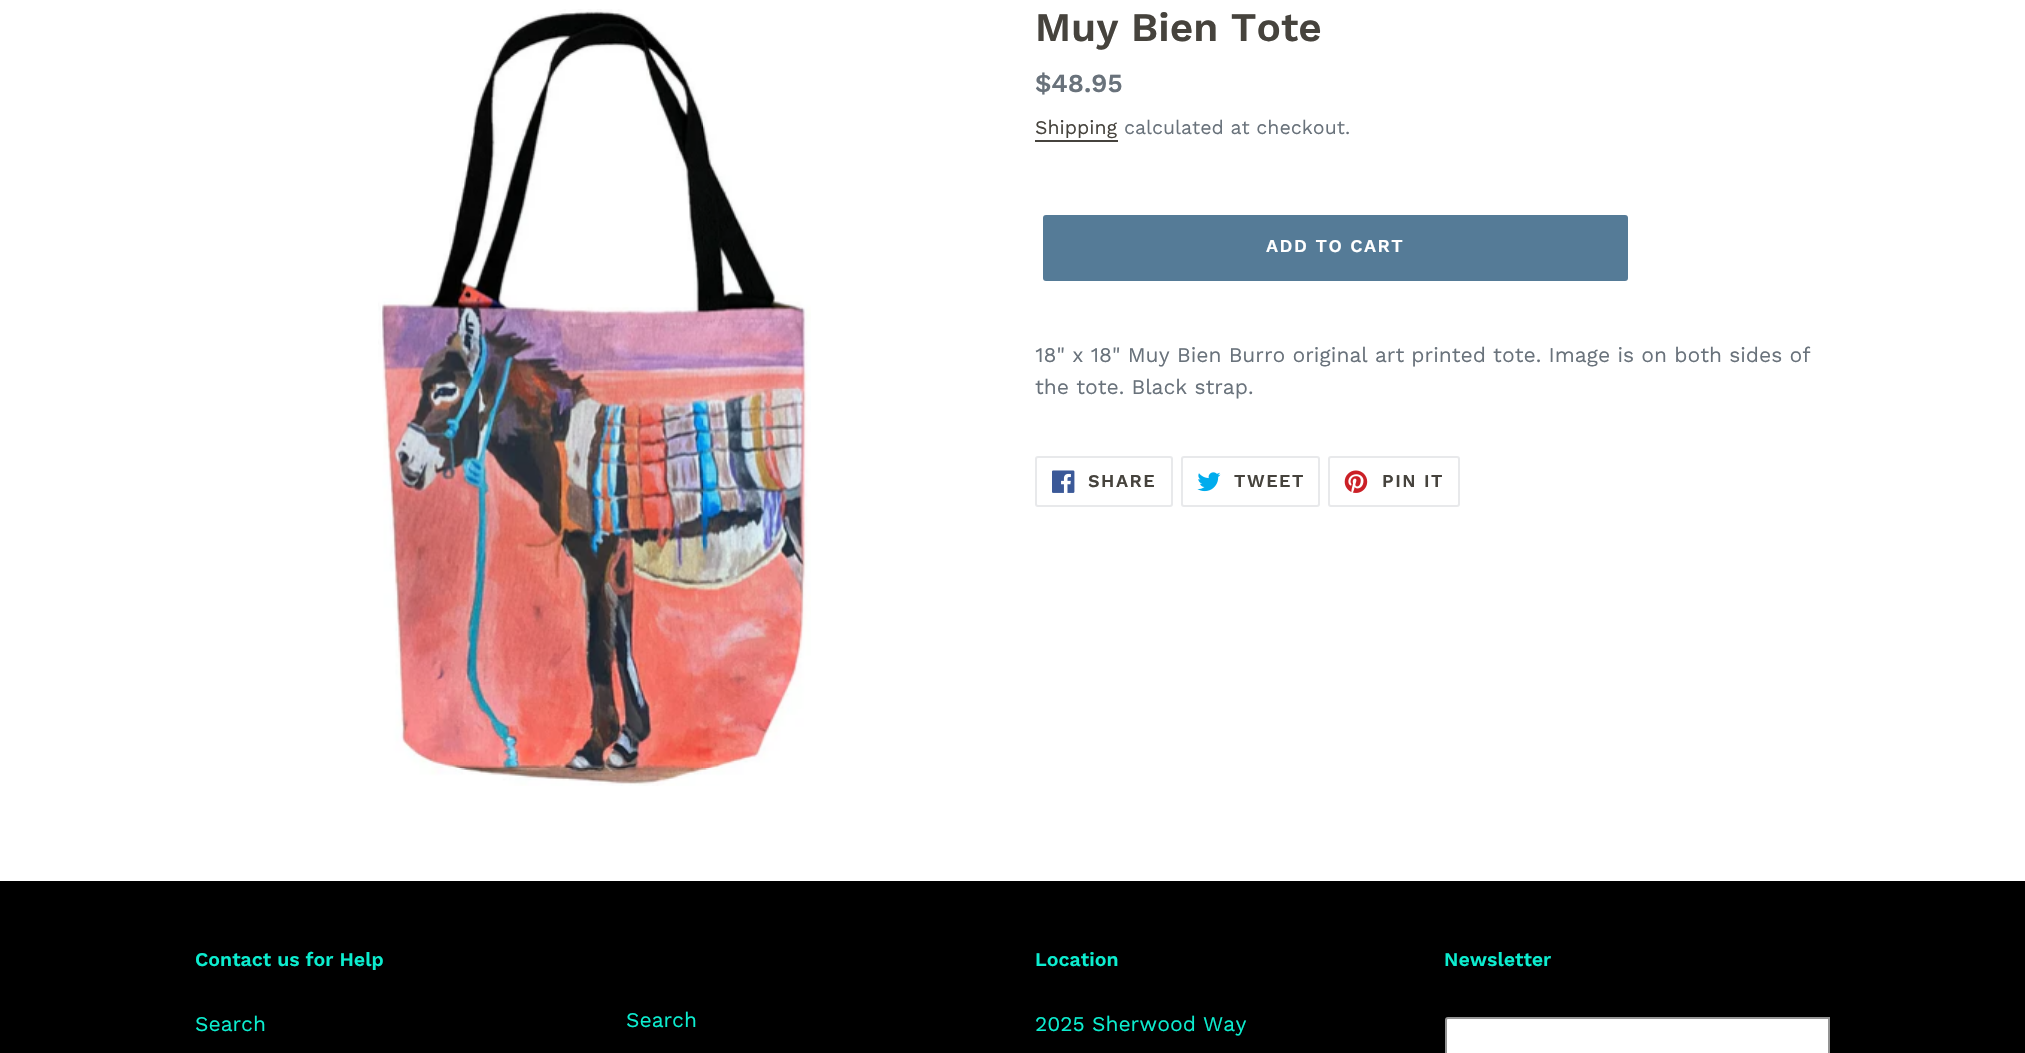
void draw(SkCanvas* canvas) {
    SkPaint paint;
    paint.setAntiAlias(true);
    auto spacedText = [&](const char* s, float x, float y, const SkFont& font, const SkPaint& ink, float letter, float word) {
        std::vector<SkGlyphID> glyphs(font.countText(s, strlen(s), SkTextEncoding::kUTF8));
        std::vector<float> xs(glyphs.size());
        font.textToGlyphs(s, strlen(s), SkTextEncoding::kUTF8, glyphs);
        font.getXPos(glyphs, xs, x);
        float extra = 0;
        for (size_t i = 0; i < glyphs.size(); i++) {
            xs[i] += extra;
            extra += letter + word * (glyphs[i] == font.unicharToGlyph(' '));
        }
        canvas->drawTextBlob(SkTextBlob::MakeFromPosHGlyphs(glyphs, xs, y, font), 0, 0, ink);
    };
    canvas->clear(0xFFFFFFFF);
    canvas->drawImageRect(SkImages::DeferredFromEncodedData(SkData::MakeFromFileName("img1.png")), SkRect::MakeXYWH(378, 9, 433, 777), SkSamplingOptions());
    SkFont font1(fontMgr->matchFamilyStyle("Work Sans", SkFontStyle(600, SkFontStyle::kNormal_Width, SkFontStyle::kUpright_Slant)), 40.5f);
    font1.setSubpixel(true);
    paint.setColor(0xFF46433D);
    canvas->drawString("Muy Bien Tote", 1035, 41, font1, paint);
    SkFont font2(fontMgr->matchFamilyStyle("Work Sans", SkFontStyle(600, SkFontStyle::kNormal_Width, SkFontStyle::kUpright_Slant)), 26);
    font2.setSubpixel(true);
    paint.setColor(0xFF69727B);
    canvas->drawString("$48.95", 1035, 92, font2, paint);
    SkFont font3(fontMgr->matchFamilyStyle("Work Sans", SkFontStyle::Normal()), 19.5f);
    font3.setSubpixel(true);
    paint.setColor(0xFF46433D);
    canvas->drawString("Shipping", 1035, 134, font3, paint);
    canvas->drawRect(SkRect::MakeXYWH(1035, 140, 83, 2), paint);
    paint.setColor(0xFF69727B);
    canvas->drawString("calculated at checkout.", 1124, 134, font3, paint);
    paint.setColor(0xFF557B97);
    canvas->drawRoundRect(SkRect::MakeXYWH(1043, 215, 585, 66), 3, 3, paint);
    SkFont font4(fontMgr->matchFamilyStyle("Work Sans", SkFontStyle(600, SkFontStyle::kNormal_Width, SkFontStyle::kUpright_Slant)), 18);
    font4.setSubpixel(true);
    paint.setColor(0xFFFFFFFF);
    spacedText("ADD TO CART", 1266, 252, font4, paint, 1.5f, 0);
    SkFont font5(fontMgr->matchFamilyStyle("Work Sans", SkFontStyle::Normal()), 21);
    font5.setSubpixel(true);
    paint.setColor(0xFF69727B);
    canvas->drawString("18\" x 18\" Muy Bien Burro original art printed tote. Image is on both sides of", 1035, 362, font5, paint);
    canvas->drawString("the tote. Black strap.", 1035, 394, font5, paint);
    paint.setStyle(SkPaint::kStroke_Style);
    paint.setStrokeWidth(2);
    paint.setColor(0xFFE8E9EB);
    canvas->drawRoundRect(SkRect::MakeXYWH(1036, 457, 136, 49), 2, 2, paint);
    canvas->drawImageRect(SkImages::DeferredFromEncodedData(SkData::MakeFromFileName("img2.png")), SkRect::MakeXYWH(1052, 470, 23, 23), SkSamplingOptions());
    paint.setStyle(SkPaint::kFill_Style);
    paint.setColor(0xFF46433D);
    spacedText("SHARE", 1088, 487, font4, paint, 1.5f, 0);
    paint.setStyle(SkPaint::kStroke_Style);
    paint.setColor(0xFFE8E9EB);
    canvas->drawRoundRect(SkRect::MakeXYWH(1182, 457, 137, 49), 2, 2, paint);
    canvas->drawImageRect(SkImages::DeferredFromEncodedData(SkData::MakeFromFileName("img3.png")), SkRect::MakeXYWH(1197, 472, 24, 20), SkSamplingOptions());
    paint.setStyle(SkPaint::kFill_Style);
    paint.setColor(0xFF46433D);
    spacedText("TWEET", 1234, 487, font4, paint, 1.5f, 0);
    paint.setStyle(SkPaint::kStroke_Style);
    paint.setColor(0xFFE8E9EB);
    canvas->drawRoundRect(SkRect::MakeXYWH(1329, 457, 130, 49), 2, 2, paint);
    canvas->drawImageRect(SkImages::DeferredFromEncodedData(SkData::MakeFromFileName("img4.png")), SkRect::MakeXYWH(1344, 470, 24, 23), SkSamplingOptions());
    paint.setStyle(SkPaint::kFill_Style);
    paint.setColor(0xFF46433D);
    spacedText("PIN IT", 1382, 487, font4, paint, 1.5f, 0);
    paint.setColor(0xFF000000);
    canvas->drawRect(SkRect::MakeXYWH(0, 881, 2025, 172), paint);
    SkFont font6(fontMgr->matchFamilyStyle("Work Sans", SkFontStyle(600, SkFontStyle::kNormal_Width, SkFontStyle::kUpright_Slant)), 19.5f);
    font6.setSubpixel(true);
    paint.setColor(0xFF0CEDCF);
    canvas->drawString("Contact us for Help", 195, 966, font6, paint);
    canvas->drawString("Search", 195, 1031, font5, paint);
    canvas->drawString("Location", 1035, 966, font6, paint);
    canvas->drawString("2025 Sherwood Way", 1035, 1031, font5, paint);
    canvas->drawString("Newsletter", 1444, 966, font6, paint);
    paint.setColor(0xFFFFFFFF);
    canvas->drawPath(SkPathBuilder().moveTo(1448, 1018).lineTo(1829, 1018).lineTo(1829, 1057).lineTo(1448, 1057).cubicTo(1447, 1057, 1446, 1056, 1446, 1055).lineTo(1446, 1020).cubicTo(1446, 1019, 1447, 1018, 1448, 1018).close().detach(), paint);
    paint.setStyle(SkPaint::kStroke_Style);
    paint.setColor(0xFF949494);
    canvas->drawPath(SkPathBuilder().moveTo(1448, 1018).lineTo(1829, 1018).lineTo(1829, 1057).lineTo(1448, 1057).cubicTo(1447, 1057, 1446, 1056, 1446, 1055).lineTo(1446, 1020).cubicTo(1446, 1019, 1447, 1018, 1448, 1018).close().detach(), paint);
    paint.setStyle(SkPaint::kFill_Style);
    paint.setColor(0xFF0CEDCF);
    canvas->drawString("Search", 626, 1027, font5, paint);
}
